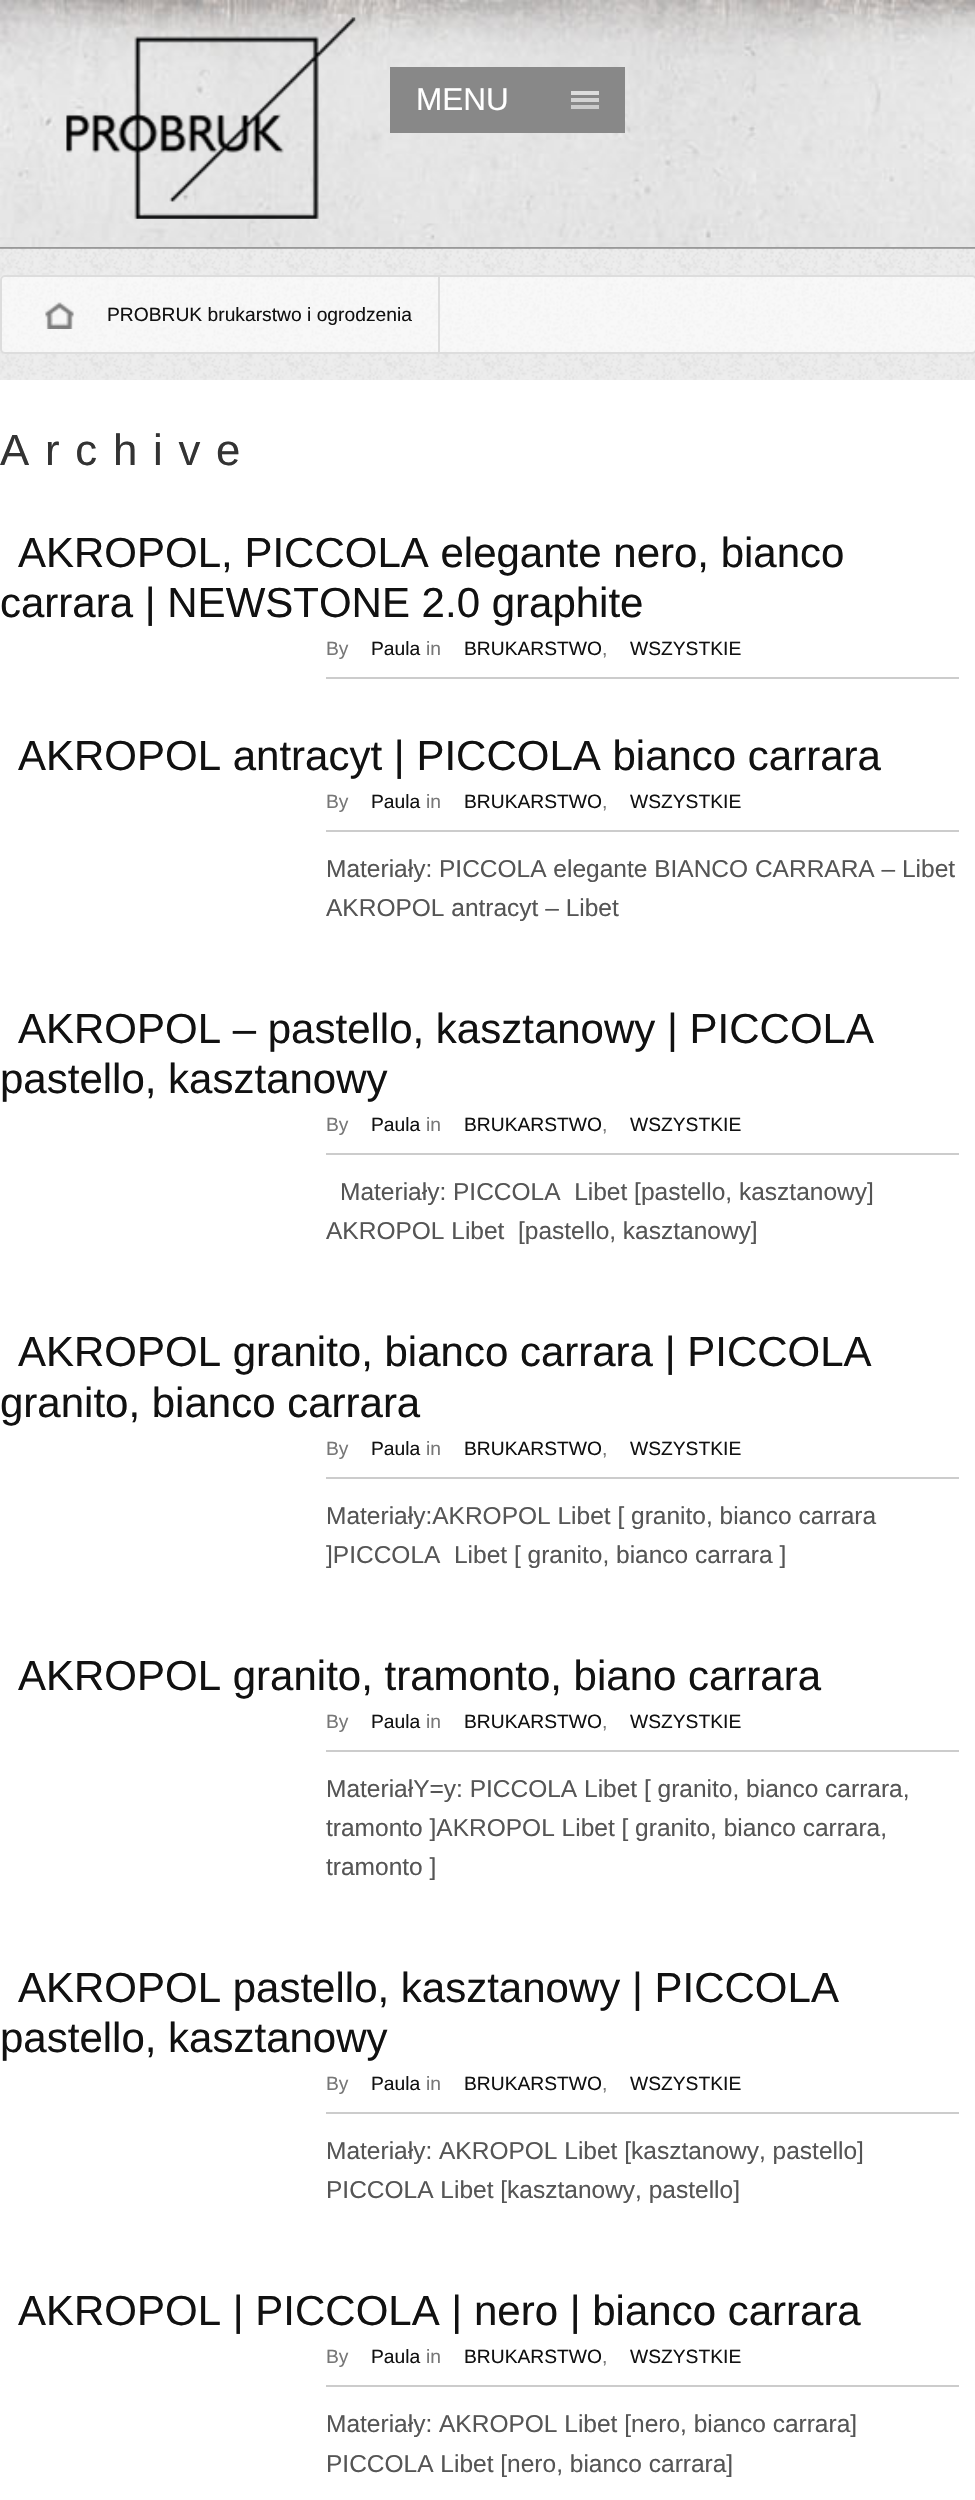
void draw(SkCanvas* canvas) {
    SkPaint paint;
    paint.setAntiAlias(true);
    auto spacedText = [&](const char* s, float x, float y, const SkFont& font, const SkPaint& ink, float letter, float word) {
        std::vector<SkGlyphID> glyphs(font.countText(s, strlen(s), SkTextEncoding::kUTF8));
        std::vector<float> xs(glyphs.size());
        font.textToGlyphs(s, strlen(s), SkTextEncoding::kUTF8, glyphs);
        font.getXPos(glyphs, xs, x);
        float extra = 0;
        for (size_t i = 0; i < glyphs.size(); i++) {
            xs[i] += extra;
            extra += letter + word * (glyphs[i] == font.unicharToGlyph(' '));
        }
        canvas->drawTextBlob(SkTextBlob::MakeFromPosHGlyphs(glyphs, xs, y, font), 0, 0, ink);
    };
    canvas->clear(0xFFE6E6E6);
    canvas->drawImageRect(SkImages::DeferredFromEncodedData(SkData::MakeFromFileName("img1.png")), SkRect::MakeXYWH(0, 0, 975, 247), SkSamplingOptions());
    paint.setColor(0xFF999999);
    canvas->drawRect(SkRect::MakeXYWH(0, 247, 975, 2), paint);
    canvas->drawImageRect(SkImages::DeferredFromEncodedData(SkData::MakeFromFileName("img2.png")), SkRect::MakeXYWH(66, 17, 290, 202), SkSamplingOptions());
    paint.setColor(0xFF888888);
    canvas->drawRect(SkRect::MakeXYWH(390, 67, 235, 66), paint);
    SkFont font1(fontMgr->matchFamilyStyle("Liberation Sans", SkFontStyle::Normal()), 31.5f);
    font1.setSubpixel(true);
    paint.setColor(0xFFFFFFFF);
    canvas->drawString("MENU", 416, 110, font1, paint);
    paint.setColor(0xFFCACACA);
    canvas->drawRect(SkRect::MakeXYWH(571, 105, 28, 4), paint);
    paint.setColor(0xFFDDDDDD);
    canvas->drawRect(SkRect::MakeXYWH(571, 91, 28, 4), paint);
    paint.setColor(0xFFD3D3D3);
    canvas->drawRect(SkRect::MakeXYWH(571, 98, 28, 4), paint);
    canvas->drawImageRect(SkImages::DeferredFromEncodedData(SkData::MakeFromFileName("img3.png")), SkRect::MakeXYWH(0, 248, 975, 132), SkSamplingOptions());
    canvas->drawImageRect(SkImages::DeferredFromEncodedData(SkData::MakeFromFileName("img4.png")), SkRect::MakeXYWH(0, 275, 975, 79), SkSamplingOptions());
    paint.setStyle(SkPaint::kStroke_Style);
    paint.setStrokeWidth(2);
    paint.setColor(0xFFDDDDDD);
    canvas->drawRoundRect(SkRect::MakeXYWH(1, 276, 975, 77), 4, 4, paint);
    canvas->drawImageRect(SkImages::DeferredFromEncodedData(SkData::MakeFromFileName("img5.png")), SkRect::MakeXYWH(45, 302, 29, 27), SkSamplingOptions());
    paint.setStyle(SkPaint::kFill_Style);
    canvas->drawRect(SkRect::MakeXYWH(438, 277, 2, 75), paint);
    SkFont font2(fontMgr->matchFamilyStyle("Liberation Sans", SkFontStyle::Normal()), 19.25f);
    font2.setSubpixel(true);
    paint.setColor(0xFF111111);
    canvas->drawString("PROBRUK brukarstwo i ogrodzenia", 107, 321, font2, paint);
    paint.setColor(0xFFFFFFFF);
    canvas->drawRect(SkRect::MakeXYWH(0, 380, 975, 2120), paint);
    SkFont font3(fontMgr->matchFamilyStyle("Liberation Sans", SkFontStyle::Normal()), 43.75f);
    font3.setSubpixel(true);
    paint.setColor(0xFF333333);
    spacedText("Archive", 0, 465, font3, paint, 15.75f, 0);
    SkFont font4(fontMgr->matchFamilyStyle("Liberation Sans", SkFontStyle::Normal()), 42);
    font4.setSubpixel(true);
    paint.setColor(0xFF111111);
    canvas->drawString("AKROPOL, PICCOLA elegante nero, bianco", 18, 567, font4, paint);
    canvas->drawString("carrara | NEWSTONE 2.0 graphite", 0, 617, font4, paint);
    paint.setColor(0xFFCCCCCC);
    canvas->drawRect(SkRect::MakeXYWH(326, 677, 633, 2), paint);
    paint.setColor(0xFF777777);
    canvas->drawString("By", 326, 655, font2, paint);
    paint.setColor(0xFF111111);
    canvas->drawString("Paula", 371, 655, font2, paint);
    paint.setColor(0xFF777777);
    canvas->drawString("in", 426, 655, font2, paint);
    paint.setColor(0xFF111111);
    canvas->drawString("BRUKARSTWO", 464, 655, font2, paint);
    paint.setColor(0xFF777777);
    canvas->drawString(",", 602, 655, font2, paint);
    paint.setColor(0xFF111111);
    canvas->drawString("WSZYSTKIE", 630, 655, font2, paint);
    canvas->drawString("AKROPOL antracyt | PICCOLA bianco carrara", 18, 770, font4, paint);
    paint.setColor(0xFFCCCCCC);
    canvas->drawRect(SkRect::MakeXYWH(326, 830, 633, 2), paint);
    paint.setColor(0xFF777777);
    canvas->drawString("By", 326, 808, font2, paint);
    paint.setColor(0xFF111111);
    canvas->drawString("Paula", 371, 808, font2, paint);
    paint.setColor(0xFF777777);
    canvas->drawString("in", 426, 808, font2, paint);
    paint.setColor(0xFF111111);
    canvas->drawString("BRUKARSTWO", 464, 808, font2, paint);
    paint.setColor(0xFF777777);
    canvas->drawString(",", 602, 808, font2, paint);
    paint.setColor(0xFF111111);
    canvas->drawString("WSZYSTKIE", 630, 808, font2, paint);
    SkFont font5(fontMgr->matchFamilyStyle("Liberation Sans", SkFontStyle::Normal()), 24.5f);
    font5.setSubpixel(true);
    paint.setColor(0xFF555555);
    canvas->drawString("Materiały: PICCOLA elegante BIANCO CARRARA – Libet", 326, 877, font5, paint);
    canvas->drawString("AKROPOL antracyt – Libet", 326, 916, font5, paint);
    paint.setColor(0xFF111111);
    canvas->drawString("AKROPOL – pastello, kasztanowy | PICCOLA", 18, 1043, font4, paint);
    canvas->drawString("pastello, kasztanowy", 0, 1093, font4, paint);
    paint.setColor(0xFFCCCCCC);
    canvas->drawRect(SkRect::MakeXYWH(326, 1153, 633, 2), paint);
    paint.setColor(0xFF777777);
    canvas->drawString("By", 326, 1131, font2, paint);
    paint.setColor(0xFF111111);
    canvas->drawString("Paula", 371, 1131, font2, paint);
    paint.setColor(0xFF777777);
    canvas->drawString("in", 426, 1131, font2, paint);
    paint.setColor(0xFF111111);
    canvas->drawString("BRUKARSTWO", 464, 1131, font2, paint);
    paint.setColor(0xFF777777);
    canvas->drawString(",", 602, 1131, font2, paint);
    paint.setColor(0xFF111111);
    canvas->drawString("WSZYSTKIE", 630, 1131, font2, paint);
    paint.setColor(0xFF555555);
    canvas->drawString("Materiały: PICCOLA  Libet [pastello, kasztanowy]", 340, 1200, font5, paint);
    canvas->drawString("AKROPOL Libet  [pastello, kasztanowy]", 326, 1239, font5, paint);
    paint.setColor(0xFF111111);
    canvas->drawString("AKROPOL granito, bianco carrara | PICCOLA", 18, 1366, font4, paint);
    canvas->drawString("granito, bianco carrara", 0, 1417, font4, paint);
    paint.setColor(0xFFCCCCCC);
    canvas->drawRect(SkRect::MakeXYWH(326, 1477, 633, 2), paint);
    paint.setColor(0xFF777777);
    canvas->drawString("By", 326, 1455, font2, paint);
    paint.setColor(0xFF111111);
    canvas->drawString("Paula", 371, 1455, font2, paint);
    paint.setColor(0xFF777777);
    canvas->drawString("in", 426, 1455, font2, paint);
    paint.setColor(0xFF111111);
    canvas->drawString("BRUKARSTWO", 464, 1455, font2, paint);
    paint.setColor(0xFF777777);
    canvas->drawString(",", 602, 1455, font2, paint);
    paint.setColor(0xFF111111);
    canvas->drawString("WSZYSTKIE", 630, 1455, font2, paint);
    paint.setColor(0xFF555555);
    canvas->drawString("Materiały:AKROPOL Libet [ granito, bianco carrara", 326, 1524, font5, paint);
    canvas->drawString("]PICCOLA  Libet [ granito, bianco carrara ]", 326, 1563, font5, paint);
    paint.setColor(0xFF111111);
    canvas->drawString("AKROPOL granito, tramonto, biano carrara", 18, 1690, font4, paint);
    paint.setColor(0xFFCCCCCC);
    canvas->drawRect(SkRect::MakeXYWH(326, 1750, 633, 2), paint);
    paint.setColor(0xFF777777);
    canvas->drawString("By", 326, 1728, font2, paint);
    paint.setColor(0xFF111111);
    canvas->drawString("Paula", 371, 1728, font2, paint);
    paint.setColor(0xFF777777);
    canvas->drawString("in", 426, 1728, font2, paint);
    paint.setColor(0xFF111111);
    canvas->drawString("BRUKARSTWO", 464, 1728, font2, paint);
    paint.setColor(0xFF777777);
    canvas->drawString(",", 602, 1728, font2, paint);
    paint.setColor(0xFF111111);
    canvas->drawString("WSZYSTKIE", 630, 1728, font2, paint);
    paint.setColor(0xFF555555);
    canvas->drawString("MateriałY=y: PICCOLA Libet [ granito, bianco carrara,", 326, 1797, font5, paint);
    canvas->drawString("tramonto ]AKROPOL Libet [ granito, bianco carrara,", 326, 1836, font5, paint);
    canvas->drawString("tramonto ]", 326, 1875, font5, paint);
    paint.setColor(0xFF111111);
    canvas->drawString("AKROPOL pastello, kasztanowy | PICCOLA", 18, 2002, font4, paint);
    canvas->drawString("pastello, kasztanowy", 0, 2052, font4, paint);
    paint.setColor(0xFFCCCCCC);
    canvas->drawRect(SkRect::MakeXYWH(326, 2112, 633, 2), paint);
    paint.setColor(0xFF777777);
    canvas->drawString("By", 326, 2090, font2, paint);
    paint.setColor(0xFF111111);
    canvas->drawString("Paula", 371, 2090, font2, paint);
    paint.setColor(0xFF777777);
    canvas->drawString("in", 426, 2090, font2, paint);
    paint.setColor(0xFF111111);
    canvas->drawString("BRUKARSTWO", 464, 2090, font2, paint);
    paint.setColor(0xFF777777);
    canvas->drawString(",", 602, 2090, font2, paint);
    paint.setColor(0xFF111111);
    canvas->drawString("WSZYSTKIE", 630, 2090, font2, paint);
    paint.setColor(0xFF555555);
    canvas->drawString("Materiały: AKROPOL Libet [kasztanowy, pastello]", 326, 2159, font5, paint);
    canvas->drawString("PICCOLA Libet [kasztanowy, pastello]", 326, 2198, font5, paint);
    paint.setColor(0xFF111111);
    canvas->drawString("AKROPOL | PICCOLA | nero | bianco carrara", 18, 2325, font4, paint);
    paint.setColor(0xFFCCCCCC);
    canvas->drawRect(SkRect::MakeXYWH(326, 2385, 633, 2), paint);
    paint.setColor(0xFF777777);
    canvas->drawString("By", 326, 2363, font2, paint);
    paint.setColor(0xFF111111);
    canvas->drawString("Paula", 371, 2363, font2, paint);
    paint.setColor(0xFF777777);
    canvas->drawString("in", 426, 2363, font2, paint);
    paint.setColor(0xFF111111);
    canvas->drawString("BRUKARSTWO", 464, 2363, font2, paint);
    paint.setColor(0xFF777777);
    canvas->drawString(",", 602, 2363, font2, paint);
    paint.setColor(0xFF111111);
    canvas->drawString("WSZYSTKIE", 630, 2363, font2, paint);
    paint.setColor(0xFF555555);
    canvas->drawString("Materiały: AKROPOL Libet [nero, bianco carrara]", 326, 2432, font5, paint);
    canvas->drawString("PICCOLA Libet [nero, bianco carrara]", 326, 2472, font5, paint);
}
